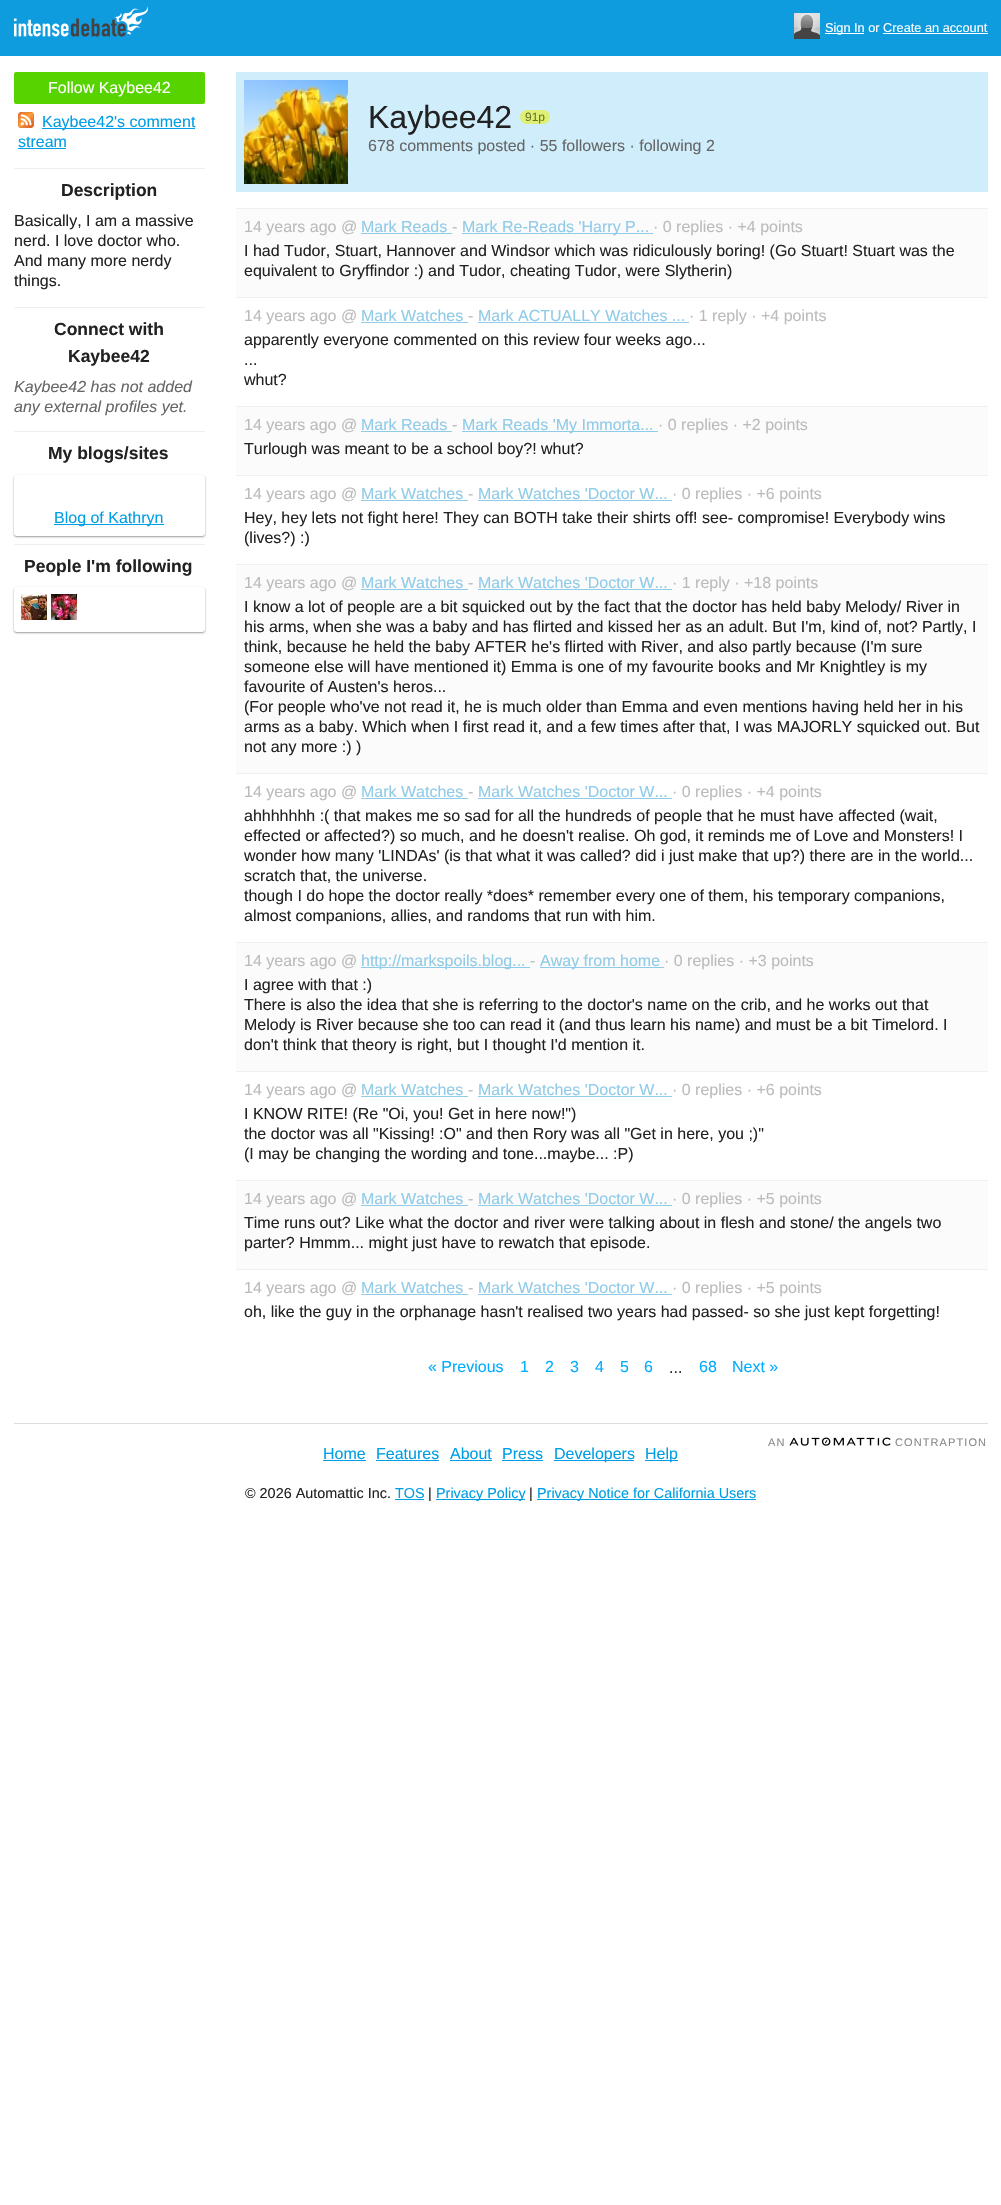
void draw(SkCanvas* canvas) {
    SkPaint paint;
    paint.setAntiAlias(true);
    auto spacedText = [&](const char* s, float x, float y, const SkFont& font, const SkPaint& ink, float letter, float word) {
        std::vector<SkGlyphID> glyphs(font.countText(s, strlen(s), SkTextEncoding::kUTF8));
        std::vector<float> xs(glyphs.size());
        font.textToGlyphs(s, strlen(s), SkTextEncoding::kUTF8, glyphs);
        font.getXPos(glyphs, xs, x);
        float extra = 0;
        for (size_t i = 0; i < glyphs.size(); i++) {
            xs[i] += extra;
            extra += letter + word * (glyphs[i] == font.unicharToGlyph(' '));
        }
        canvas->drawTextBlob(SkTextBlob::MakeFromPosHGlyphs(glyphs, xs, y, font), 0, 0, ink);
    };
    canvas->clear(0xFFFFFFFF);
    paint.setColor(0xFF0F9CDF);
    canvas->drawRect(SkRect::MakeXYWH(0, 0, 1001, 56), paint);
    canvas->drawImageRect(SkImages::DeferredFromEncodedData(SkData::MakeFromFileName("img1.png")), SkRect::MakeXYWH(14, 6, 134, 31), SkSamplingOptions());
    canvas->drawImageRect(SkImages::DeferredFromEncodedData(SkData::MakeFromFileName("img2.png")), SkRect::MakeXYWH(794, 13, 26, 26), SkSamplingOptions());
    paint.setColor(0xFFFFFFFF);
    canvas->drawRect(SkRect::MakeXYWH(825, 33, 39, 1), paint);
    SkFont font1(fontMgr->matchFamilyStyle("Liberation Sans", SkFontStyle::Normal()), 12.75f);
    font1.setSubpixel(true);
    canvas->drawString("Sign In or Create an account", 825, 32, font1, paint);
    canvas->drawRect(SkRect::MakeXYWH(883, 33, 105, 1), paint);
    paint.setColor(0xFF57D400);
    canvas->drawRoundRect(SkRect::MakeXYWH(14, 72, 191, 32), 2, 2, paint);
    SkFont font2(fontMgr->matchFamilyStyle("Liberation Sans", SkFontStyle::Normal()), 16);
    font2.setSubpixel(true);
    paint.setColor(0xFFFFFFFF);
    canvas->drawString("Follow Kaybee42", 48, 93, font2, paint);
    canvas->drawImageRect(SkImages::DeferredFromEncodedData(SkData::MakeFromFileName("img3.png")), SkRect::MakeXYWH(18, 112, 16, 16), SkSamplingOptions());
    paint.setColor(0xFF009EE4);
    canvas->drawRect(SkRect::MakeXYWH(42, 128, 153, 1), paint);
    canvas->drawString("Kaybee42's comment", 42, 127, font2, paint);
    canvas->drawString("stream", 18, 147, font2, paint);
    canvas->drawRect(SkRect::MakeXYWH(18, 148, 48, 1), paint);
    paint.setColor(0xFFEFEFEF);
    canvas->drawRect(SkRect::MakeXYWH(14, 168, 191, 1), paint);
    SkFont font3(fontMgr->matchFamilyStyle("Liberation Sans", SkFontStyle::Bold()), 17.5f);
    font3.setSubpixel(true);
    paint.setColor(0xFF222222);
    canvas->drawString("Description", 61, 196, font3, paint);
    canvas->drawString("Basically, I am a massive", 14, 226, font2, paint);
    canvas->drawString("nerd. I love doctor who.", 14, 246, font2, paint);
    canvas->drawString("And many more nerdy", 14, 266, font2, paint);
    canvas->drawString("things.", 14, 286, font2, paint);
    paint.setColor(0xFFEFEFEF);
    canvas->drawRect(SkRect::MakeXYWH(14, 307, 191, 1), paint);
    paint.setColor(0xFF222222);
    canvas->drawString("Connect with", 54, 335, font3, paint);
    canvas->drawString("Kaybee42", 68, 362, font3, paint);
    SkFont font4(fontMgr->matchFamilyStyle("Liberation Sans", SkFontStyle::Italic()), 16);
    font4.setSubpixel(true);
    paint.setColor(0xFF666666);
    canvas->drawString("Kaybee42 has not added", 14, 392, font4, paint);
    canvas->drawString("any external profiles yet.", 14, 412, font4, paint);
    paint.setColor(0xFFEFEFEF);
    canvas->drawRect(SkRect::MakeXYWH(14, 431, 191, 1), paint);
    paint.setColor(0xFF222222);
    canvas->drawString("My blogs/sites", 48, 459, font3, paint);
    paint.setColor(0xFF999999);
    paint.setMaskFilter(SkMaskFilter::MakeBlur(kNormal_SkBlurStyle, 1));
    canvas->drawRoundRect(SkRect::MakeXYWH(14, 476, 191, 61), 3, 3, paint);
    paint.setMaskFilter(nullptr);
    paint.setColor(0xFFFFFFFF);
    canvas->drawRoundRect(SkRect::MakeXYWH(14, 475, 191, 61), 3, 3, paint);
    paint.setColor(0xFF009EE4);
    canvas->drawRect(SkRect::MakeXYWH(54, 524, 110, 1), paint);
    canvas->drawString("Blog of Kathryn", 54, 523, font2, paint);
    paint.setColor(0xFFEFEFEF);
    canvas->drawRect(SkRect::MakeXYWH(14, 544, 191, 1), paint);
    paint.setColor(0xFF222222);
    canvas->drawString("People I'm following", 24, 572, font3, paint);
    paint.setColor(0xFF999999);
    paint.setMaskFilter(SkMaskFilter::MakeBlur(kNormal_SkBlurStyle, 1));
    canvas->drawRoundRect(SkRect::MakeXYWH(14, 588, 191, 45), 3, 3, paint);
    paint.setMaskFilter(nullptr);
    paint.setColor(0xFFFFFFFF);
    canvas->drawRoundRect(SkRect::MakeXYWH(14, 587, 191, 45), 3, 3, paint);
    canvas->drawImageRect(SkImages::DeferredFromEncodedData(SkData::MakeFromFileName("img4.png")), SkRect::MakeXYWH(21, 594, 26, 26), SkSamplingOptions());
    canvas->drawImageRect(SkImages::DeferredFromEncodedData(SkData::MakeFromFileName("img5.png")), SkRect::MakeXYWH(51, 594, 26, 26), SkSamplingOptions());
    paint.setColor(0xFFCFEDFB);
    canvas->drawRect(SkRect::MakeXYWH(236, 72, 752, 120), paint);
    canvas->drawImageRect(SkImages::DeferredFromEncodedData(SkData::MakeFromFileName("img6.png")), SkRect::MakeXYWH(244, 80, 104, 104), SkSamplingOptions());
    SkFont font5(fontMgr->matchFamilyStyle("Liberation Sans", SkFontStyle::Normal()), 32);
    font5.setSubpixel(true);
    paint.setColor(0xFF222222);
    canvas->drawString("Kaybee42", 368, 128, font5, paint);
    canvas->drawImageRect(SkImages::DeferredFromEncodedData(SkData::MakeFromFileName("img7.png")), SkRect::MakeXYWH(520, 110, 5, 14), SkSamplingOptions());
    canvas->drawImageRect(SkImages::DeferredFromEncodedData(SkData::MakeFromFileName("img8.png")), SkRect::MakeXYWH(525, 110, 25, 14), SkSamplingOptions());
    SkFont font6(fontMgr->matchFamilyStyle("Liberation Sans", SkFontStyle::Normal()), 12);
    font6.setSubpixel(true);
    paint.setColor(0xFF667726);
    canvas->drawString("91p", 525, 121, font6, paint);
    paint.setColor(0xFF666666);
    canvas->drawString("678 comments posted · 55 followers · following 2", 368, 151, font2, paint);
    paint.setColor(0xFFFBFBFB);
    canvas->drawRect(SkRect::MakeXYWH(236, 209, 752, 88), paint);
    paint.setColor(0xFFEFEFEF);
    canvas->drawRect(SkRect::MakeXYWH(236, 208, 752, 1), paint);
    paint.setColor(0xFFBBBBBB);
    canvas->drawString("14 years ago @", 244, 232, font2, paint);
    paint.setColor(0xFF90CBE8);
    canvas->drawString("Mark Reads", 361, 232, font2, paint);
    canvas->drawRect(SkRect::MakeXYWH(361, 233, 91, 1), paint);
    paint.setColor(0xFFBBBBBB);
    canvas->drawString("-", 452, 232, font2, paint);
    paint.setColor(0xFF90CBE8);
    canvas->drawRect(SkRect::MakeXYWH(462, 233, 191, 1), paint);
    canvas->drawString("Mark Re-Reads 'Harry P...", 462, 232, font2, paint);
    paint.setColor(0xFFBBBBBB);
    canvas->drawString("· 0 replies · +4 points", 653, 232, font2, paint);
    paint.setColor(0xFF222222);
    canvas->drawString("I had Tudor, Stuart, Hannover and Windsor which was ridiculously boring! (Go Stuart! Stuart was the", 244, 256, font2, paint);
    canvas->drawString("equivalent to Gryffindor :) and Tudor, cheating Tudor, were Slytherin)", 244, 276, font2, paint);
    paint.setColor(0xFFEFEFEF);
    canvas->drawRect(SkRect::MakeXYWH(236, 297, 752, 1), paint);
    paint.setColor(0xFFBBBBBB);
    canvas->drawString("14 years ago @", 244, 321, font2, paint);
    paint.setColor(0xFF90CBE8);
    canvas->drawString("Mark Watches", 361, 321, font2, paint);
    canvas->drawRect(SkRect::MakeXYWH(361, 322, 107, 1), paint);
    paint.setColor(0xFFBBBBBB);
    canvas->drawString("-", 468, 321, font2, paint);
    paint.setColor(0xFF90CBE8);
    canvas->drawString("Mark ACTUALLY Watches ...", 478, 321, font2, paint);
    canvas->drawRect(SkRect::MakeXYWH(478, 322, 211, 1), paint);
    paint.setColor(0xFFBBBBBB);
    canvas->drawString("· 1 reply · +4 points", 689, 321, font2, paint);
    paint.setColor(0xFF222222);
    canvas->drawString("apparently everyone commented on this review four weeks ago...", 244, 345, font2, paint);
    canvas->drawString("...", 244, 365, font2, paint);
    canvas->drawString("whut?", 244, 385, font2, paint);
    paint.setColor(0xFFFBFBFB);
    canvas->drawRect(SkRect::MakeXYWH(236, 407, 752, 68), paint);
    paint.setColor(0xFFEFEFEF);
    canvas->drawRect(SkRect::MakeXYWH(236, 406, 752, 1), paint);
    paint.setColor(0xFFBBBBBB);
    canvas->drawString("14 years ago @", 244, 430, font2, paint);
    paint.setColor(0xFF90CBE8);
    canvas->drawString("Mark Reads", 361, 430, font2, paint);
    canvas->drawRect(SkRect::MakeXYWH(361, 431, 91, 1), paint);
    paint.setColor(0xFFBBBBBB);
    canvas->drawString("-", 452, 430, font2, paint);
    paint.setColor(0xFF90CBE8);
    canvas->drawRect(SkRect::MakeXYWH(462, 431, 196, 1), paint);
    canvas->drawString("Mark Reads 'My Immorta...", 462, 430, font2, paint);
    paint.setColor(0xFFBBBBBB);
    canvas->drawString("· 0 replies · +2 points", 658, 430, font2, paint);
    paint.setColor(0xFF222222);
    canvas->drawString("Turlough was meant to be a school boy?! whut?", 244, 454, font2, paint);
    paint.setColor(0xFFEFEFEF);
    canvas->drawRect(SkRect::MakeXYWH(236, 475, 752, 1), paint);
    paint.setColor(0xFFBBBBBB);
    canvas->drawString("14 years ago @", 244, 499, font2, paint);
    paint.setColor(0xFF90CBE8);
    canvas->drawString("Mark Watches", 361, 499, font2, paint);
    canvas->drawRect(SkRect::MakeXYWH(361, 500, 107, 1), paint);
    paint.setColor(0xFFBBBBBB);
    canvas->drawString("-", 468, 499, font2, paint);
    paint.setColor(0xFF90CBE8);
    canvas->drawString("Mark Watches 'Doctor W...", 478, 499, font2, paint);
    canvas->drawRect(SkRect::MakeXYWH(478, 500, 194, 1), paint);
    paint.setColor(0xFFBBBBBB);
    canvas->drawString("· 0 replies · +6 points", 672, 499, font2, paint);
    paint.setColor(0xFF222222);
    canvas->drawString("Hey, hey lets not fight here! They can BOTH take their shirts off! see- compromise! Everybody wins", 244, 523, font2, paint);
    canvas->drawString("(lives?) :)", 244, 543, font2, paint);
    paint.setColor(0xFFFBFBFB);
    canvas->drawRect(SkRect::MakeXYWH(236, 565, 752, 208), paint);
    paint.setColor(0xFFEFEFEF);
    canvas->drawRect(SkRect::MakeXYWH(236, 564, 752, 1), paint);
    paint.setColor(0xFFBBBBBB);
    canvas->drawString("14 years ago @", 244, 588, font2, paint);
    paint.setColor(0xFF90CBE8);
    canvas->drawString("Mark Watches", 361, 588, font2, paint);
    canvas->drawRect(SkRect::MakeXYWH(361, 589, 107, 1), paint);
    paint.setColor(0xFFBBBBBB);
    canvas->drawString("-", 468, 588, font2, paint);
    paint.setColor(0xFF90CBE8);
    canvas->drawString("Mark Watches 'Doctor W...", 478, 588, font2, paint);
    canvas->drawRect(SkRect::MakeXYWH(478, 589, 194, 1), paint);
    paint.setColor(0xFFBBBBBB);
    canvas->drawString("· 1 reply · +18 points", 672, 588, font2, paint);
    paint.setColor(0xFF222222);
    canvas->drawString("I know a lot of people are a bit squicked out by the fact that the doctor has held baby Melody/ River in", 244, 612, font2, paint);
    canvas->drawString("his arms, when she was a baby and has flirted and kissed her as an adult. But I'm, kind of, not? Partly, I", 244, 632, font2, paint);
    canvas->drawString("think, because he held the baby AFTER he's flirted with River, and also partly because (I'm sure", 244, 652, font2, paint);
    canvas->drawString("someone else will have mentioned it) Emma is one of my favourite books and Mr Knightley is my", 244, 672, font2, paint);
    canvas->drawString("favourite of Austen's heros...", 244, 692, font2, paint);
    canvas->drawString("(For people who've not read it, he is much older than Emma and even mentions having held her in his", 244, 712, font2, paint);
    canvas->drawString("arms as a baby. Which when I first read it, and a few times after that, I was MAJORLY squicked out. But", 244, 732, font2, paint);
    canvas->drawString("not any more :) )", 244, 752, font2, paint);
    paint.setColor(0xFFEFEFEF);
    canvas->drawRect(SkRect::MakeXYWH(236, 773, 752, 1), paint);
    paint.setColor(0xFFBBBBBB);
    canvas->drawString("14 years ago @", 244, 797, font2, paint);
    paint.setColor(0xFF90CBE8);
    canvas->drawString("Mark Watches", 361, 797, font2, paint);
    canvas->drawRect(SkRect::MakeXYWH(361, 798, 107, 1), paint);
    paint.setColor(0xFFBBBBBB);
    canvas->drawString("-", 468, 797, font2, paint);
    paint.setColor(0xFF90CBE8);
    canvas->drawString("Mark Watches 'Doctor W...", 478, 797, font2, paint);
    canvas->drawRect(SkRect::MakeXYWH(478, 798, 194, 1), paint);
    paint.setColor(0xFFBBBBBB);
    canvas->drawString("· 0 replies · +4 points", 672, 797, font2, paint);
    paint.setColor(0xFF222222);
    canvas->drawString("ahhhhhhh :( that makes me so sad for all the hundreds of people that he must have affected (wait,", 244, 821, font2, paint);
    canvas->drawString("effected or affected?) so much, and he doesn't realise. Oh god, it reminds me of Love and Monsters! I", 244, 841, font2, paint);
    canvas->drawString("wonder how many 'LINDAs' (is that what it was called? did i just make that up?) there are in the world...", 244, 861, font2, paint);
    canvas->drawString("scratch that, the universe.", 244, 881, font2, paint);
    canvas->drawString("though I do hope the doctor really *does* remember every one of them, his temporary companions,", 244, 901, font2, paint);
    canvas->drawString("almost companions, allies, and randoms that run with him.", 244, 921, font2, paint);
    paint.setColor(0xFFFBFBFB);
    canvas->drawRect(SkRect::MakeXYWH(236, 943, 752, 128), paint);
    paint.setColor(0xFFEFEFEF);
    canvas->drawRect(SkRect::MakeXYWH(236, 942, 752, 1), paint);
    paint.setColor(0xFFBBBBBB);
    canvas->drawString("14 years ago @", 244, 966, font2, paint);
    paint.setColor(0xFF90CBE8);
    canvas->drawRect(SkRect::MakeXYWH(361, 967, 169, 1), paint);
    canvas->drawString("http://markspoils.blog...", 361, 966, font2, paint);
    paint.setColor(0xFFBBBBBB);
    canvas->drawString("-", 530, 966, font2, paint);
    paint.setColor(0xFF90CBE8);
    canvas->drawRect(SkRect::MakeXYWH(540, 967, 124, 1), paint);
    canvas->drawString("Away from home", 540, 966, font2, paint);
    paint.setColor(0xFFBBBBBB);
    canvas->drawString("· 0 replies · +3 points", 664, 966, font2, paint);
    paint.setColor(0xFF222222);
    canvas->drawString("I agree with that :)", 244, 990, font2, paint);
    canvas->drawString("There is also the idea that she is referring to the doctor's name on the crib, and he works out that", 244, 1010, font2, paint);
    canvas->drawString("Melody is River because she too can read it (and thus learn his name) and must be a bit Timelord. I", 244, 1030, font2, paint);
    canvas->drawString("don't think that theory is right, but I thought I'd mention it.", 244, 1050, font2, paint);
    paint.setColor(0xFFEFEFEF);
    canvas->drawRect(SkRect::MakeXYWH(236, 1071, 752, 1), paint);
    paint.setColor(0xFFBBBBBB);
    canvas->drawString("14 years ago @", 244, 1095, font2, paint);
    paint.setColor(0xFF90CBE8);
    canvas->drawString("Mark Watches", 361, 1095, font2, paint);
    canvas->drawRect(SkRect::MakeXYWH(361, 1096, 107, 1), paint);
    paint.setColor(0xFFBBBBBB);
    canvas->drawString("-", 468, 1095, font2, paint);
    paint.setColor(0xFF90CBE8);
    canvas->drawString("Mark Watches 'Doctor W...", 478, 1095, font2, paint);
    canvas->drawRect(SkRect::MakeXYWH(478, 1096, 194, 1), paint);
    paint.setColor(0xFFBBBBBB);
    canvas->drawString("· 0 replies · +6 points", 672, 1095, font2, paint);
    paint.setColor(0xFF222222);
    canvas->drawString("I KNOW RITE! (Re \"Oi, you! Get in here now!\")", 244, 1119, font2, paint);
    canvas->drawString("the doctor was all \"Kissing! :O\" and then Rory was all \"Get in here, you ;)\"", 244, 1139, font2, paint);
    canvas->drawString("(I may be changing the wording and tone...maybe... :P)", 244, 1159, font2, paint);
    paint.setColor(0xFFFBFBFB);
    canvas->drawRect(SkRect::MakeXYWH(236, 1181, 752, 88), paint);
    paint.setColor(0xFFEFEFEF);
    canvas->drawRect(SkRect::MakeXYWH(236, 1180, 752, 1), paint);
    paint.setColor(0xFFBBBBBB);
    canvas->drawString("14 years ago @", 244, 1204, font2, paint);
    paint.setColor(0xFF90CBE8);
    canvas->drawString("Mark Watches", 361, 1204, font2, paint);
    canvas->drawRect(SkRect::MakeXYWH(361, 1205, 107, 1), paint);
    paint.setColor(0xFFBBBBBB);
    canvas->drawString("-", 468, 1204, font2, paint);
    paint.setColor(0xFF90CBE8);
    canvas->drawString("Mark Watches 'Doctor W...", 478, 1204, font2, paint);
    canvas->drawRect(SkRect::MakeXYWH(478, 1205, 194, 1), paint);
    paint.setColor(0xFFBBBBBB);
    canvas->drawString("· 0 replies · +5 points", 672, 1204, font2, paint);
    paint.setColor(0xFF222222);
    canvas->drawString("Time runs out? Like what the doctor and river were talking about in flesh and stone/ the angels two", 244, 1228, font2, paint);
    canvas->drawString("parter? Hmmm... might just have to rewatch that episode.", 244, 1248, font2, paint);
    paint.setColor(0xFFEFEFEF);
    canvas->drawRect(SkRect::MakeXYWH(236, 1269, 752, 1), paint);
    paint.setColor(0xFFBBBBBB);
    canvas->drawString("14 years ago @", 244, 1293, font2, paint);
    paint.setColor(0xFF90CBE8);
    canvas->drawString("Mark Watches", 361, 1293, font2, paint);
    canvas->drawRect(SkRect::MakeXYWH(361, 1294, 107, 1), paint);
    paint.setColor(0xFFBBBBBB);
    canvas->drawString("-", 468, 1293, font2, paint);
    paint.setColor(0xFF90CBE8);
    canvas->drawString("Mark Watches 'Doctor W...", 478, 1293, font2, paint);
    canvas->drawRect(SkRect::MakeXYWH(478, 1294, 194, 1), paint);
    paint.setColor(0xFFBBBBBB);
    canvas->drawString("· 0 replies · +5 points", 672, 1293, font2, paint);
    paint.setColor(0xFF222222);
    canvas->drawString("oh, like the guy in the orphanage hasn't realised two years had passed- so she just kept forgetting!", 244, 1317, font2, paint);
    paint.setColor(0xFF00ACFF);
    canvas->drawString("« Previous", 428, 1372, font2, paint);
    canvas->drawString("1", 520, 1372, font2, paint);
    canvas->drawString("2", 545, 1372, font2, paint);
    canvas->drawString("3", 570, 1372, font2, paint);
    canvas->drawString("4", 595, 1372, font2, paint);
    canvas->drawString("5", 620, 1372, font2, paint);
    canvas->drawString("6", 644, 1372, font2, paint);
    paint.setColor(0xFF222222);
    canvas->drawString("...", 669, 1373, font2, paint);
    paint.setColor(0xFF00ACFF);
    canvas->drawString("68", 699, 1372, font2, paint);
    canvas->drawString("Next »", 732, 1372, font2, paint);
    paint.setColor(0xFFDDDDDD);
    canvas->drawRect(SkRect::MakeXYWH(14, 1423, 974, 1), paint);
    SkFont font7(fontMgr->matchFamilyStyle("Liberation Sans", SkFontStyle::Normal()), 11);
    font7.setSubpixel(true);
    paint.setColor(0xFF888888);
    spacedText("AN", 768, 1446, font7, paint, 1.1f, 0);
    canvas->drawImageRect(SkImages::DeferredFromEncodedData(SkData::MakeFromFileName("img9.png")), SkRect::MakeXYWH(789, 1437, 102, 9), SkSamplingOptions());
    spacedText("CONTRAPTION", 895, 1446, font7, paint, 1.1f, 0);
    paint.setColor(0xFF009EE4);
    canvas->drawString("Home", 323, 1459, font2, paint);
    canvas->drawRect(SkRect::MakeXYWH(323, 1460, 43, 1), paint);
    canvas->drawString("Features", 376, 1459, font2, paint);
    canvas->drawRect(SkRect::MakeXYWH(376, 1460, 63, 1), paint);
    canvas->drawString("About", 450, 1459, font2, paint);
    canvas->drawRect(SkRect::MakeXYWH(450, 1460, 42, 1), paint);
    canvas->drawString("Press", 502, 1459, font2, paint);
    canvas->drawRect(SkRect::MakeXYWH(502, 1460, 41, 1), paint);
    canvas->drawRect(SkRect::MakeXYWH(554, 1460, 80, 1), paint);
    canvas->drawString("Developers", 554, 1459, font2, paint);
    canvas->drawRect(SkRect::MakeXYWH(645, 1460, 33, 1), paint);
    canvas->drawString("Help", 645, 1459, font2, paint);
    SkFont font8(fontMgr->matchFamilyStyle("Liberation Sans", SkFontStyle::Normal()), 14.4f);
    font8.setSubpixel(true);
    paint.setColor(0xFF222222);
    canvas->drawString("© 2026 Automattic Inc.", 245, 1498, font8, paint);
    paint.setColor(0xFF009EE4);
    canvas->drawString("TOS", 395, 1498, font8, paint);
    canvas->drawRect(SkRect::MakeXYWH(395, 1499, 29, 1), paint);
    paint.setColor(0xFF222222);
    canvas->drawString("|", 428, 1498, font8, paint);
    paint.setColor(0xFF009EE4);
    canvas->drawRect(SkRect::MakeXYWH(436, 1499, 89, 1), paint);
    canvas->drawString("Privacy Policy", 436, 1498, font8, paint);
    paint.setColor(0xFF222222);
    canvas->drawString("|", 529, 1498, font8, paint);
    paint.setColor(0xFF009EE4);
    canvas->drawRect(SkRect::MakeXYWH(537, 1499, 219, 1), paint);
    canvas->drawString("Privacy Notice for California Users", 537, 1498, font8, paint);
}
